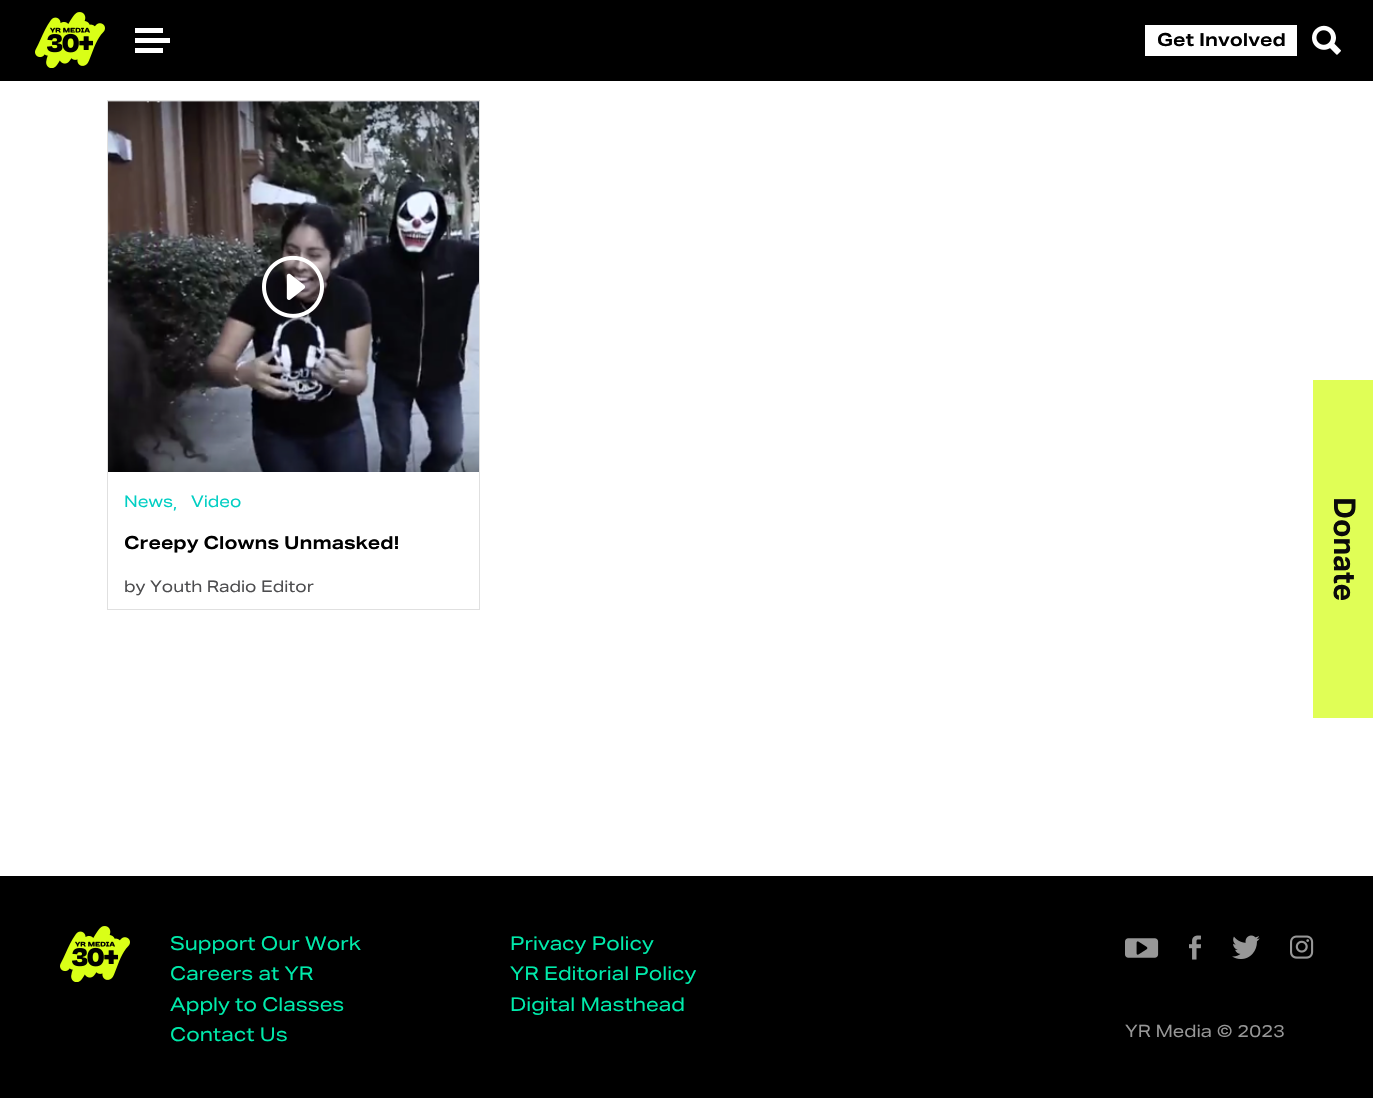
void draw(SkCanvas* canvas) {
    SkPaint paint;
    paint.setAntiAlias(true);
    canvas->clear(0xFFFFFFFF);
    paint.setColor(0xFF000000);
    canvas->drawRect(SkRect::MakeXYWH(0, 0, 1373, 81), paint);
    canvas->drawImageRect(SkImages::DeferredFromEncodedData(SkData::MakeFromFileName("img1.png")), SkRect::MakeXYWH(35, 12, 70, 56), SkSamplingOptions());
    paint.setColor(0xFFFFFFFF);
    canvas->drawRect(SkRect::MakeXYWH(135, 28, 28, 5), paint);
    canvas->drawRect(SkRect::MakeXYWH(135, 38, 35, 5), paint);
    canvas->drawRect(SkRect::MakeXYWH(135, 48, 28, 5), paint);
    canvas->drawRect(SkRect::MakeXYWH(1145, 25, 152, 31), paint);
    SkFont font1(fontMgr->matchFamilyStyle("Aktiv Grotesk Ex", SkFontStyle::Bold()), 18);
    font1.setSubpixel(true);
    paint.setColor(0xFF000000);
    canvas->drawString("Get Involved", 1157, 46, font1, paint);
    canvas->drawImageRect(SkImages::DeferredFromEncodedData(SkData::MakeFromFileName("img2.png")), SkRect::MakeXYWH(1312, 25, 29, 30), SkSamplingOptions());
    paint.setStyle(SkPaint::kStroke_Style);
    paint.setStrokeWidth(1);
    paint.setColor(0xFFE0E0E0);
    canvas->drawRect(SkRect::MakeXYWH(107.5f, 100.5f, 372, 509), paint);
    canvas->drawImageRect(SkImages::DeferredFromEncodedData(SkData::MakeFromFileName("img3.png")), SkRect::MakeXYWH(108, 101, 371, 371), SkSamplingOptions());
    canvas->drawImageRect(SkImages::DeferredFromEncodedData(SkData::MakeFromFileName("img4.png")), SkRect::MakeXYWH(262, 255, 62, 63), SkSamplingOptions());
    SkFont font2(fontMgr->matchFamilyStyle("Aktiv Grotesk Ex", SkFontStyle::Normal()), 16);
    font2.setSubpixel(true);
    paint.setStyle(SkPaint::kFill_Style);
    paint.setColor(0xFF00CEC3);
    canvas->drawString("News", 124, 507, font2, paint);
    canvas->drawString("Video", 191, 507, font2, paint);
    canvas->drawString(",", 173, 509, font2, paint);
    paint.setColor(0xFF000000);
    canvas->drawString("Creepy Clowns Unmasked!", 124, 549, font1, paint);
    paint.setColor(0xFF4D4D4F);
    canvas->drawString("by Youth Radio Editor", 124, 592, font2, paint);
    paint.setColor(0xFFE0FE56);
    canvas->drawRect(SkRect::MakeXYWH(1313, 380, 60, 338), paint);
    SkFont font3(fontMgr->matchFamilyStyle("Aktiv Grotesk", SkFontStyle::Bold()), 30);
    font3.setSubpixel(true);
    paint.setColor(0xFF0A0A0A);
    canvas->save();
    canvas->rotate(90, 1334, 497);
    canvas->drawString("Donate", 1334, 497, font3, paint);
    canvas->restore();
    paint.setColor(0xFF000000);
    canvas->drawRect(SkRect::MakeXYWH(0, 876, 1373, 222), paint);
    canvas->drawImageRect(SkImages::DeferredFromEncodedData(SkData::MakeFromFileName("img1.png")), SkRect::MakeXYWH(60, 926, 70, 56), SkSamplingOptions());
    SkFont font4(fontMgr->matchFamilyStyle("Aktiv Grotesk Ex", SkFontStyle::Normal()), 19);
    font4.setSubpixel(true);
    paint.setColor(0xFF00EBAB);
    canvas->drawString("Support Our Work", 170, 950, font4, paint);
    canvas->drawString("Privacy Policy", 510, 950, font4, paint);
    canvas->drawString("Careers at YR", 170, 980, font4, paint);
    canvas->drawString("YR Editorial Policy", 510, 980, font4, paint);
    canvas->drawString("Apply to Classes", 170, 1011, font4, paint);
    canvas->drawString("Digital Masthead", 510, 1011, font4, paint);
    canvas->drawString("Contact Us", 170, 1041, font4, paint);
    canvas->drawImageRect(SkImages::DeferredFromEncodedData(SkData::MakeFromFileName("img5.png")), SkRect::MakeXYWH(1125, 938, 34, 20), SkSamplingOptions());
    canvas->drawImageRect(SkImages::DeferredFromEncodedData(SkData::MakeFromFileName("img6.png")), SkRect::MakeXYWH(1189, 935, 12, 25), SkSamplingOptions());
    canvas->drawImageRect(SkImages::DeferredFromEncodedData(SkData::MakeFromFileName("img7.png")), SkRect::MakeXYWH(1232, 935, 28, 24), SkSamplingOptions());
    canvas->drawImageRect(SkImages::DeferredFromEncodedData(SkData::MakeFromFileName("img8.png")), SkRect::MakeXYWH(1290, 935, 24, 24), SkSamplingOptions());
    SkFont font5(fontMgr->matchFamilyStyle("Aktiv Grotesk Ex", SkFontStyle::Normal()), 17);
    font5.setSubpixel(true);
    paint.setColor(0xFF979797);
    canvas->drawString("YR Media © 2023", 1125, 1037, font5, paint);
}
